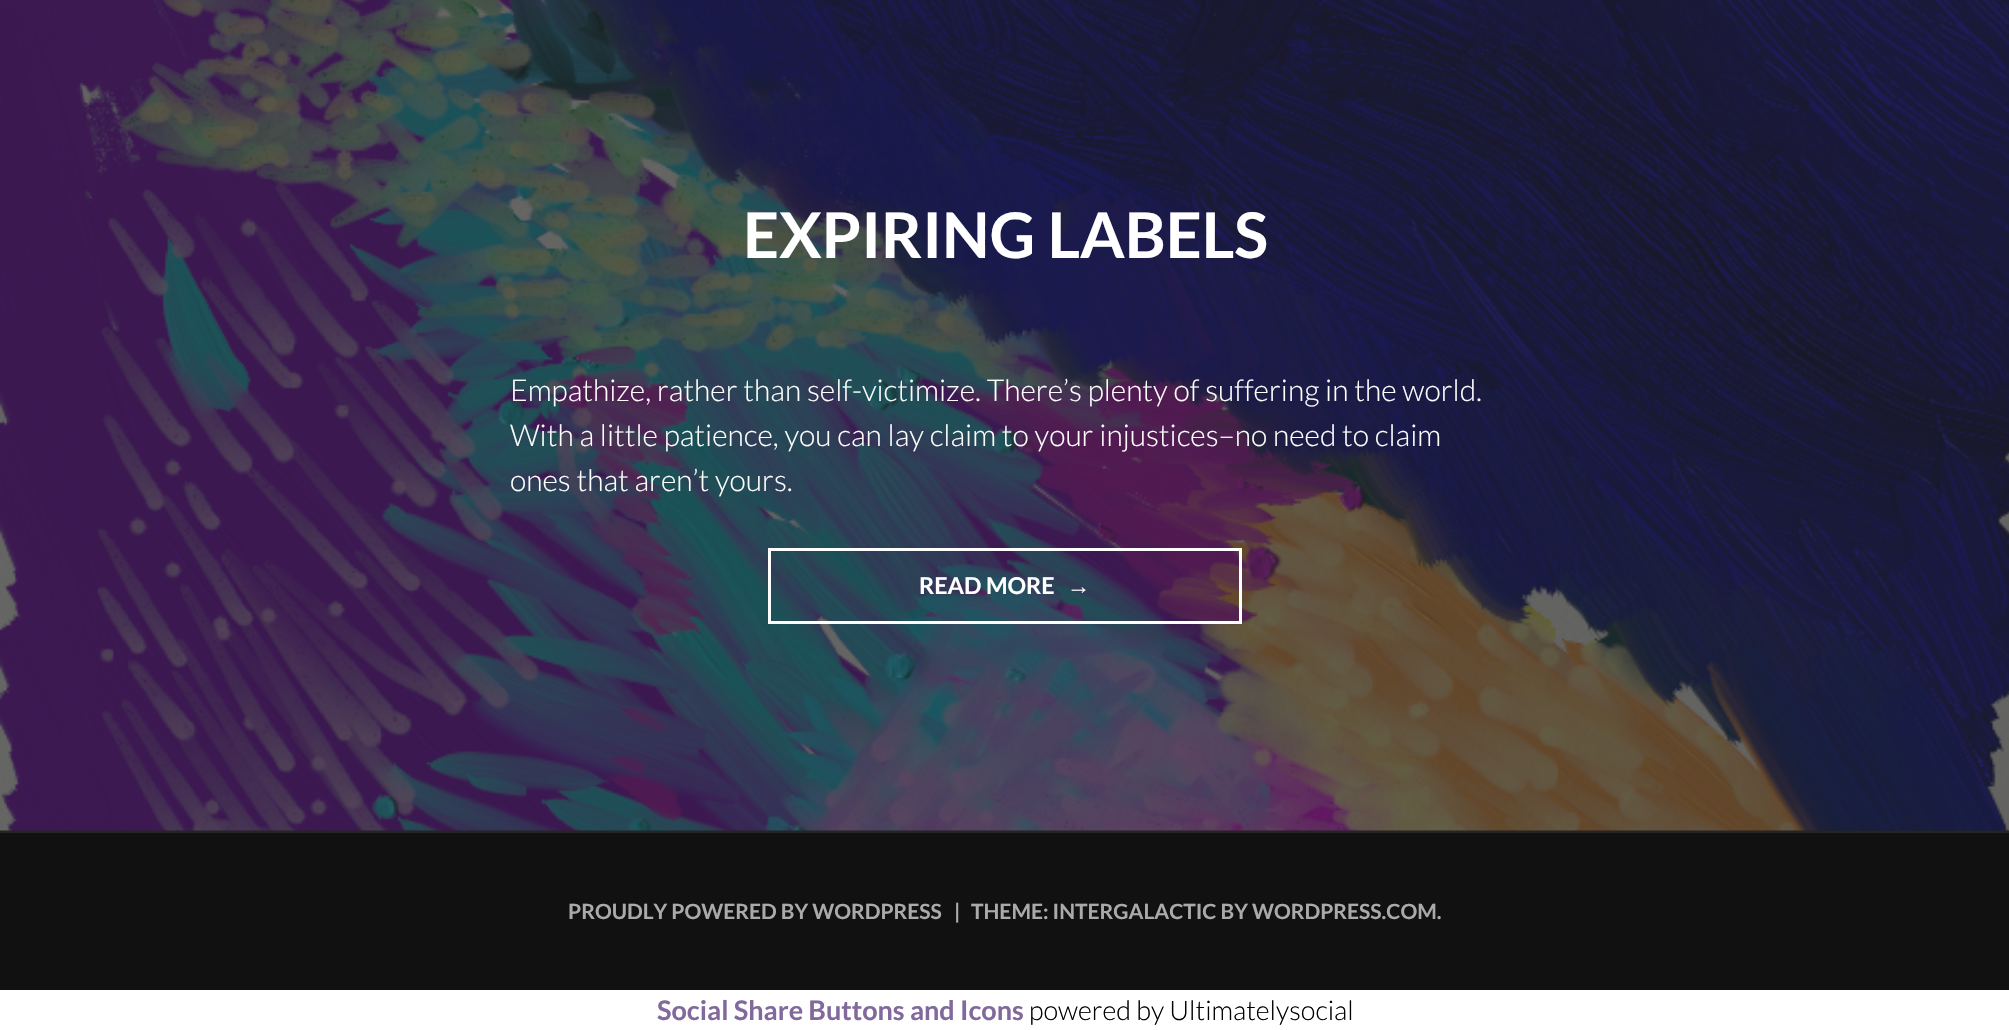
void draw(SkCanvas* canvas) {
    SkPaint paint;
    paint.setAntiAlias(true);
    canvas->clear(0xFFFFFFFF);
    paint.setColor(0xFF222222);
    canvas->drawRect(SkRect::MakeXYWH(0, 0, 2009, 831), paint);
    paint.setColor(0xFF252525);
    canvas->drawRect(SkRect::MakeXYWH(0, 831, 2009, 2), paint);
    canvas->drawImageRect(SkImages::DeferredFromEncodedData(SkData::MakeFromFileName("img1.png")), SkRect::MakeXYWH(0, 0, 2009, 831), SkSamplingOptions());
    SkFont font1(fontMgr->matchFamilyStyle("Lato", SkFontStyle::Bold()), 63);
    font1.setSubpixel(true);
    paint.setColor(0xFFFFFFFF);
    canvas->drawString("EXPIRING LABELS", 743, 258, font1, paint);
    SkFont font2(fontMgr->matchFamilyStyle("Lato", SkFontStyle(300, SkFontStyle::kNormal_Width, SkFontStyle::kUpright_Slant)), 30);
    font2.setSubpixel(true);
    canvas->drawString("Empathize, rather than self-victimize. There’s plenty of suffering in the world.", 510, 401, font2, paint);
    canvas->drawString("With a little patience, you can lay claim to your injustices–no need to claim", 510, 446, font2, paint);
    canvas->drawString("ones that aren’t yours.", 510, 491, font2, paint);
    paint.setStyle(SkPaint::kStroke_Style);
    paint.setStrokeWidth(3);
    canvas->drawRect(SkRect::MakeXYWH(769.5f, 549.5f, 471, 73), paint);
    SkFont font3(fontMgr->matchFamilyStyle("Lato", SkFontStyle::Bold()), 23.25f);
    font3.setSubpixel(true);
    paint.setStyle(SkPaint::kFill_Style);
    canvas->drawString("READ MORE", 919, 594, font3, paint);
    SkFont font4(fontMgr->matchFamilyStyle("Liberation Sans", SkFontStyle::Bold()), 23.25f);
    font4.setSubpixel(true);
    canvas->drawString("→", 1067, 594, font4, paint);
    paint.setColor(0xFF111111);
    canvas->drawRect(SkRect::MakeXYWH(0, 833, 2009, 157), paint);
    SkFont font5(fontMgr->matchFamilyStyle("Lato", SkFontStyle::Bold()), 21);
    font5.setSubpixel(true);
    paint.setColor(0xFFAAAAAA);
    canvas->drawString("PROUDLY POWERED BY WORDPRESS", 568, 919, font5, paint);
    canvas->drawString("|", 954, 919, font5, paint);
    canvas->drawString("THEME: INTERGALACTIC BY WORDPRESS.COM.", 971, 919, font5, paint);
    SkFont font6(fontMgr->matchFamilyStyle("Lato", SkFontStyle::Bold()), 27);
    font6.setSubpixel(true);
    paint.setColor(0xFF81699B);
    canvas->drawString("Social Share Buttons and Icons", 657, 1020, font6, paint);
    SkFont font7(fontMgr->matchFamilyStyle("Lato", SkFontStyle(300, SkFontStyle::kNormal_Width, SkFontStyle::kUpright_Slant)), 27);
    font7.setSubpixel(true);
    paint.setColor(0xFF000000);
    canvas->drawString("powered by Ultimatelysocial", 1029, 1020, font7, paint);
}
